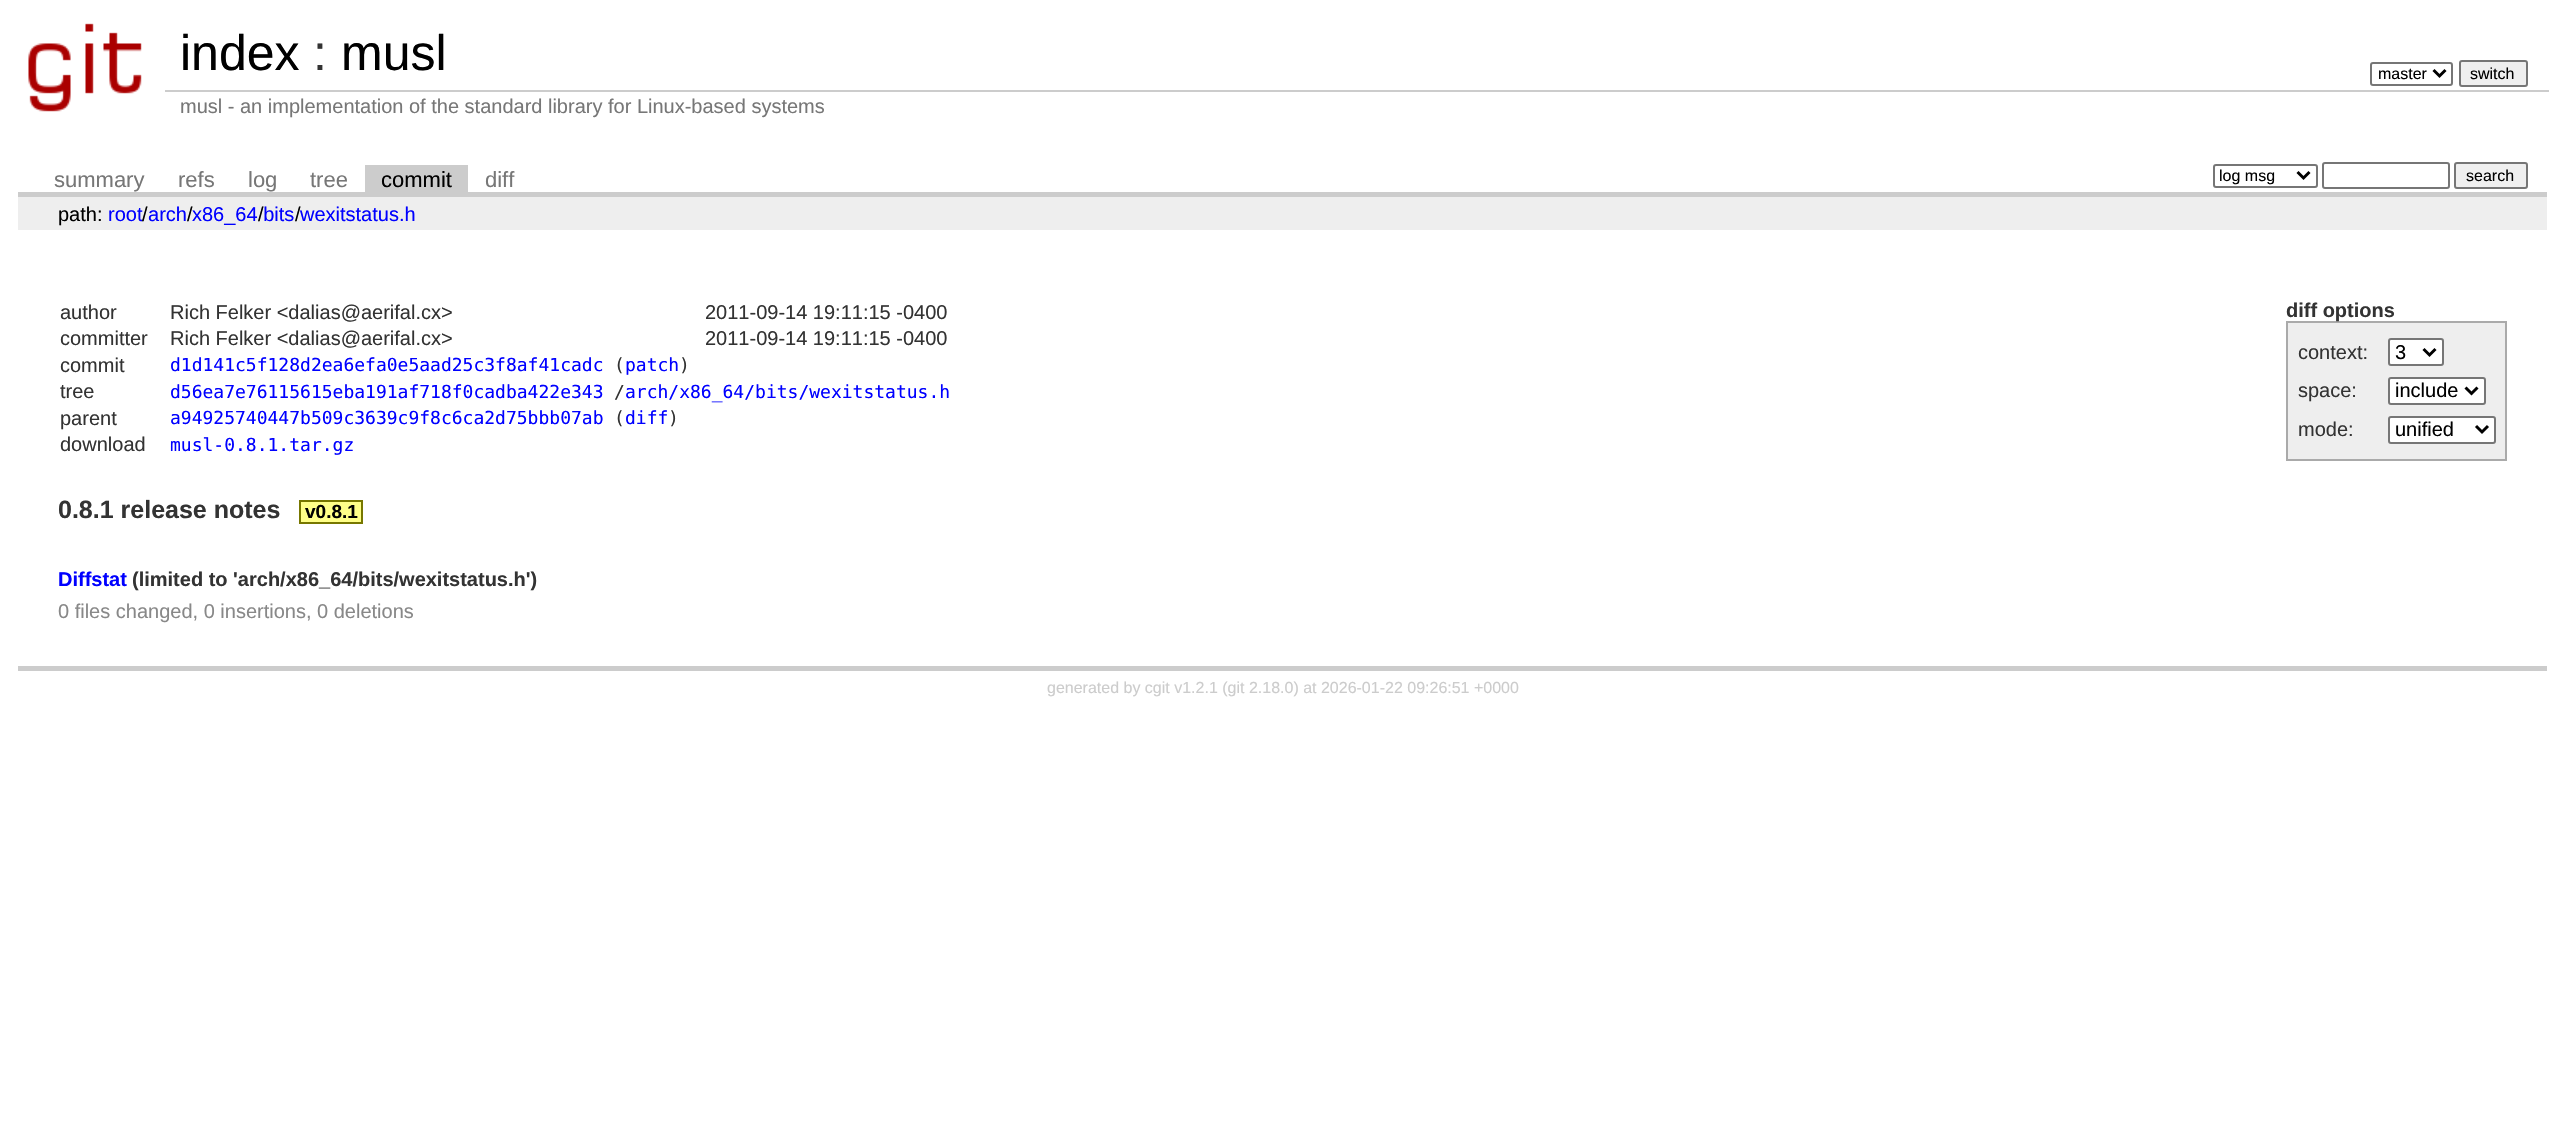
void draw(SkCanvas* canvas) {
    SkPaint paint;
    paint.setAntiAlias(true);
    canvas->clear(0xFFFFFFFF);
    canvas->drawImageRect(SkImages::DeferredFromEncodedData(SkData::MakeFromFileName("img1.png")), SkRect::MakeXYWH(28, 23, 114, 89), SkSamplingOptions());
    SkFont font1(fontMgr->matchFamilyStyle("Liberation Sans", SkFontStyle::Normal()), 50);
    font1.setSubpixel(true);
    paint.setColor(0xFF000000);
    canvas->drawString("index", 180, 70, font1, paint);
    paint.setColor(0xFF333333);
    canvas->drawString(":", 313, 70, font1, paint);
    paint.setColor(0xFF000000);
    canvas->drawString("musl", 341, 70, font1, paint);
    paint.setStyle(SkPaint::kStroke_Style);
    paint.setStrokeWidth(2);
    paint.setColor(0xFF767676);
    canvas->drawRoundRect(SkRect::MakeXYWH(2371, 63, 81, 22), 2, 2, paint);
    paint.setStrokeWidth(3);
    paint.setColor(0xFF000000);
    canvas->drawPath(SkPathBuilder().moveTo(2433.5f, 70).lineTo(2439.5f, 76).lineTo(2445.5f, 70).detach(), paint);
    SkFont font2(fontMgr->matchFamilyStyle("Liberation Sans", SkFontStyle::Normal()), 16);
    font2.setSubpixel(true);
    paint.setStyle(SkPaint::kFill_Style);
    canvas->drawString("master", 2378, 79, font2, paint);
    paint.setColor(0xFFEFEFEF);
    canvas->drawRoundRect(SkRect::MakeXYWH(2460, 61, 67, 25), 2, 2, paint);
    paint.setStyle(SkPaint::kStroke_Style);
    paint.setStrokeWidth(2);
    paint.setColor(0xFF767676);
    canvas->drawRoundRect(SkRect::MakeXYWH(2460, 61, 67, 25), 2, 2, paint);
    paint.setStyle(SkPaint::kFill_Style);
    paint.setColor(0xFF000000);
    canvas->drawString("switch", 2470, 79, font2, paint);
    paint.setColor(0xFFCCCCCC);
    canvas->drawRect(SkRect::MakeXYWH(165, 90, 2384, 2), paint);
    SkFont font3(fontMgr->matchFamilyStyle("Liberation Sans", SkFontStyle::Normal()), 20);
    font3.setSubpixel(true);
    paint.setColor(0xFF777777);
    canvas->drawString("musl - an implementation of the standard library for Linux-based systems", 180, 113, font3, paint);
    paint.setColor(0xFFCCCCCC);
    canvas->drawRect(SkRect::MakeXYWH(18, 192, 2529, 5), paint);
    SkFont font4(fontMgr->matchFamilyStyle("Liberation Sans", SkFontStyle::Normal()), 22);
    font4.setSubpixel(true);
    paint.setColor(0xFF777777);
    canvas->drawString("summary", 54, 187, font4, paint);
    canvas->drawString("refs", 178, 187, font4, paint);
    canvas->drawString("log", 248, 187, font4, paint);
    canvas->drawString("tree", 310, 187, font4, paint);
    paint.setColor(0xFFCCCCCC);
    canvas->drawRect(SkRect::MakeXYWH(365, 165, 103, 27), paint);
    paint.setColor(0xFF000000);
    canvas->drawString("commit", 381, 187, font4, paint);
    paint.setColor(0xFF777777);
    canvas->drawString("diff", 485, 187, font4, paint);
    paint.setStyle(SkPaint::kStroke_Style);
    paint.setColor(0xFF767676);
    canvas->drawRoundRect(SkRect::MakeXYWH(2214, 165, 103, 22), 2, 2, paint);
    paint.setStrokeWidth(3);
    paint.setColor(0xFF000000);
    canvas->drawPath(SkPathBuilder().moveTo(2297.5f, 172).lineTo(2303.5f, 178).lineTo(2309.5f, 172).detach(), paint);
    paint.setStyle(SkPaint::kFill_Style);
    canvas->drawString("log msg", 2219, 181, font2, paint);
    paint.setStyle(SkPaint::kStroke_Style);
    paint.setStrokeWidth(2);
    paint.setColor(0xFF767676);
    canvas->drawRoundRect(SkRect::MakeXYWH(2323, 163, 126, 25), 2, 2, paint);
    paint.setStyle(SkPaint::kFill_Style);
    paint.setColor(0xFFEFEFEF);
    canvas->drawRoundRect(SkRect::MakeXYWH(2455, 163, 72, 25), 2, 2, paint);
    paint.setStyle(SkPaint::kStroke_Style);
    paint.setColor(0xFF767676);
    canvas->drawRoundRect(SkRect::MakeXYWH(2455, 163, 72, 25), 2, 2, paint);
    paint.setStyle(SkPaint::kFill_Style);
    paint.setColor(0xFF000000);
    canvas->drawString("search", 2466, 181, font2, paint);
    paint.setColor(0xFFEEEEEE);
    canvas->drawRect(SkRect::MakeXYWH(18, 197, 2529, 33), paint);
    paint.setColor(0xFF000000);
    canvas->drawString("path:", 58, 221, font3, paint);
    paint.setColor(0xFF0000FF);
    canvas->drawString("root arch", 108, 221, font3, paint);
    paint.setColor(0xFF000000);
    canvas->drawString("/", 142, 221, font3, paint);
    canvas->drawString("/", 187, 221, font3, paint);
    paint.setColor(0xFF0000FF);
    canvas->drawString("x86_64 bits", 192, 221, font3, paint);
    paint.setColor(0xFF000000);
    canvas->drawString("/", 258, 221, font3, paint);
    canvas->drawString("/", 295, 221, font3, paint);
    paint.setColor(0xFF0000FF);
    canvas->drawString("wexitstatus.h", 300, 221, font3, paint);
    paint.setColor(0xFFCCCCCC);
    canvas->drawRect(SkRect::MakeXYWH(18, 666, 2529, 5), paint);
    paint.setColor(0xFF333333);
    canvas->drawString("author", 60, 319, font3, paint);
    canvas->drawString("Rich Felker <dalias@aerifal.cx>", 170, 319, font3, paint);
    canvas->drawString("2011-09-14 19:11:15 -0400", 705, 319, font3, paint);
    canvas->drawString("committer", 60, 345, font3, paint);
    canvas->drawString("Rich Felker <dalias@aerifal.cx>", 170, 345, font3, paint);
    canvas->drawString("2011-09-14 19:11:15 -0400", 705, 345, font3, paint);
    canvas->drawString("commit", 60, 372, font3, paint);
    SkFont font5(fontMgr->matchFamilyStyle("DejaVu Sans Mono", SkFontStyle::Normal()), 18);
    font5.setSubpixel(true);
    paint.setColor(0xFF0000FF);
    canvas->drawString("d1d141c5f128d2ea6efa0e5aad25c3f8af41cadc", 170, 371, font5, paint);
    paint.setColor(0xFF333333);
    canvas->drawString("(", 614, 371, font5, paint);
    paint.setColor(0xFF0000FF);
    canvas->drawString("patch", 625, 371, font5, paint);
    paint.setColor(0xFF333333);
    canvas->drawString(")", 679, 371, font5, paint);
    canvas->drawString("tree", 60, 398, font3, paint);
    paint.setColor(0xFF0000FF);
    canvas->drawString("d56ea7e76115615eba191af718f0cadba422e343", 170, 398, font5, paint);
    paint.setColor(0xFF333333);
    canvas->drawString("/", 614, 398, font5, paint);
    paint.setColor(0xFF0000FF);
    canvas->drawString("arch/x86_64/bits/wexitstatus.h", 625, 398, font5, paint);
    paint.setColor(0xFF333333);
    canvas->drawString("parent", 60, 425, font3, paint);
    paint.setColor(0xFF0000FF);
    canvas->drawString("a94925740447b509c3639c9f8c6ca2d75bbb07ab", 170, 424, font5, paint);
    paint.setColor(0xFF333333);
    canvas->drawString("(", 614, 424, font5, paint);
    paint.setColor(0xFF0000FF);
    canvas->drawString("diff", 625, 424, font5, paint);
    paint.setColor(0xFF333333);
    canvas->drawString(")", 668, 424, font5, paint);
    canvas->drawString("download", 60, 451, font3, paint);
    paint.setColor(0xFF0000FF);
    canvas->drawString("musl-0.8.1.tar.gz", 170, 451, font5, paint);
    paint.setColor(0xFFAAAAAA);
    canvas->drawRect(SkRect::MakeXYWH(2286, 321, 221, 2), paint);
    canvas->drawRect(SkRect::MakeXYWH(2505, 321, 2, 140), paint);
    canvas->drawRect(SkRect::MakeXYWH(2286, 459, 221, 2), paint);
    canvas->drawRect(SkRect::MakeXYWH(2286, 321, 2, 140), paint);
    SkFont font6(fontMgr->matchFamilyStyle("Liberation Sans", SkFontStyle::Bold()), 20);
    font6.setSubpixel(true);
    paint.setColor(0xFF333333);
    canvas->drawString("diff options", 2286, 317, font6, paint);
    paint.setColor(0xFFEEEEEE);
    canvas->drawRect(SkRect::MakeXYWH(2288, 323, 217, 136), paint);
    paint.setColor(0xFF333333);
    canvas->drawString("context:", 2298, 359, font3, paint);
    paint.setColor(0xFFFFFFFF);
    canvas->drawRoundRect(SkRect::MakeXYWH(2389, 339, 54, 26), 2, 2, paint);
    paint.setStyle(SkPaint::kStroke_Style);
    paint.setColor(0xFF767676);
    canvas->drawRoundRect(SkRect::MakeXYWH(2389, 339, 54, 26), 2, 2, paint);
    paint.setStrokeWidth(3);
    paint.setColor(0xFF000000);
    canvas->drawPath(SkPathBuilder().moveTo(2423.5f, 349).lineTo(2429.5f, 355).lineTo(2435.5f, 349).detach(), paint);
    paint.setStyle(SkPaint::kFill_Style);
    canvas->drawString("3", 2395, 359, font3, paint);
    paint.setColor(0xFF333333);
    canvas->drawString("space:", 2298, 397, font3, paint);
    paint.setColor(0xFFFFFFFF);
    canvas->drawRoundRect(SkRect::MakeXYWH(2389, 378, 96, 26), 2, 2, paint);
    paint.setStyle(SkPaint::kStroke_Style);
    paint.setStrokeWidth(2);
    paint.setColor(0xFF767676);
    canvas->drawRoundRect(SkRect::MakeXYWH(2389, 378, 96, 26), 2, 2, paint);
    paint.setStrokeWidth(3);
    paint.setColor(0xFF000000);
    canvas->drawPath(SkPathBuilder().moveTo(2465.5f, 387.5f).lineTo(2471.5f, 393.5f).lineTo(2477.5f, 387.5f).detach(), paint);
    paint.setStyle(SkPaint::kFill_Style);
    canvas->drawString("include", 2395, 397, font3, paint);
    paint.setColor(0xFF333333);
    canvas->drawString("mode:", 2298, 436, font3, paint);
    paint.setColor(0xFFFFFFFF);
    canvas->drawRoundRect(SkRect::MakeXYWH(2389, 417, 106, 26), 2, 2, paint);
    paint.setStyle(SkPaint::kStroke_Style);
    paint.setStrokeWidth(2);
    paint.setColor(0xFF767676);
    canvas->drawRoundRect(SkRect::MakeXYWH(2389, 417, 106, 26), 2, 2, paint);
    paint.setStrokeWidth(3);
    paint.setColor(0xFF000000);
    canvas->drawPath(SkPathBuilder().moveTo(2476, 426).lineTo(2482, 432).lineTo(2488, 426).detach(), paint);
    paint.setStyle(SkPaint::kFill_Style);
    canvas->drawString("unified", 2395, 436, font3, paint);
    SkFont font7(fontMgr->matchFamilyStyle("Liberation Sans", SkFontStyle::Bold()), 25);
    font7.setSubpixel(true);
    paint.setColor(0xFF333333);
    canvas->drawString("0.8.1 release notes", 58, 518, font7, paint);
    paint.setColor(0xFFFFFF88);
    canvas->drawRect(SkRect::MakeXYWH(300, 501, 62, 22), paint);
    paint.setStyle(SkPaint::kStroke_Style);
    paint.setStrokeWidth(2);
    paint.setColor(0xFF777700);
    canvas->drawRect(SkRect::MakeXYWH(300, 501, 62, 22), paint);
    SkFont font8(fontMgr->matchFamilyStyle("Liberation Sans", SkFontStyle::Bold()), 19);
    font8.setSubpixel(true);
    paint.setStyle(SkPaint::kFill_Style);
    paint.setColor(0xFF000000);
    canvas->drawString("v0.8.1", 305, 518, font8, paint);
    paint.setColor(0xFF0000FF);
    canvas->drawString("Diffstat", 58, 586, font6, paint);
    paint.setColor(0xFF333333);
    canvas->drawString("(limited to 'arch/x86_64/bits/wexitstatus.h')", 132, 586, font6, paint);
    paint.setColor(0xFF888888);
    canvas->drawString("0 files changed, 0 insertions, 0 deletions", 58, 618, font3, paint);
    paint.setColor(0xFFCCCCCC);
    canvas->drawString("generated by cgit v1.2.1 (git 2.18.0) at 2026-01-22 09:26:51 +0000", 1047, 693, font2, paint);
}
